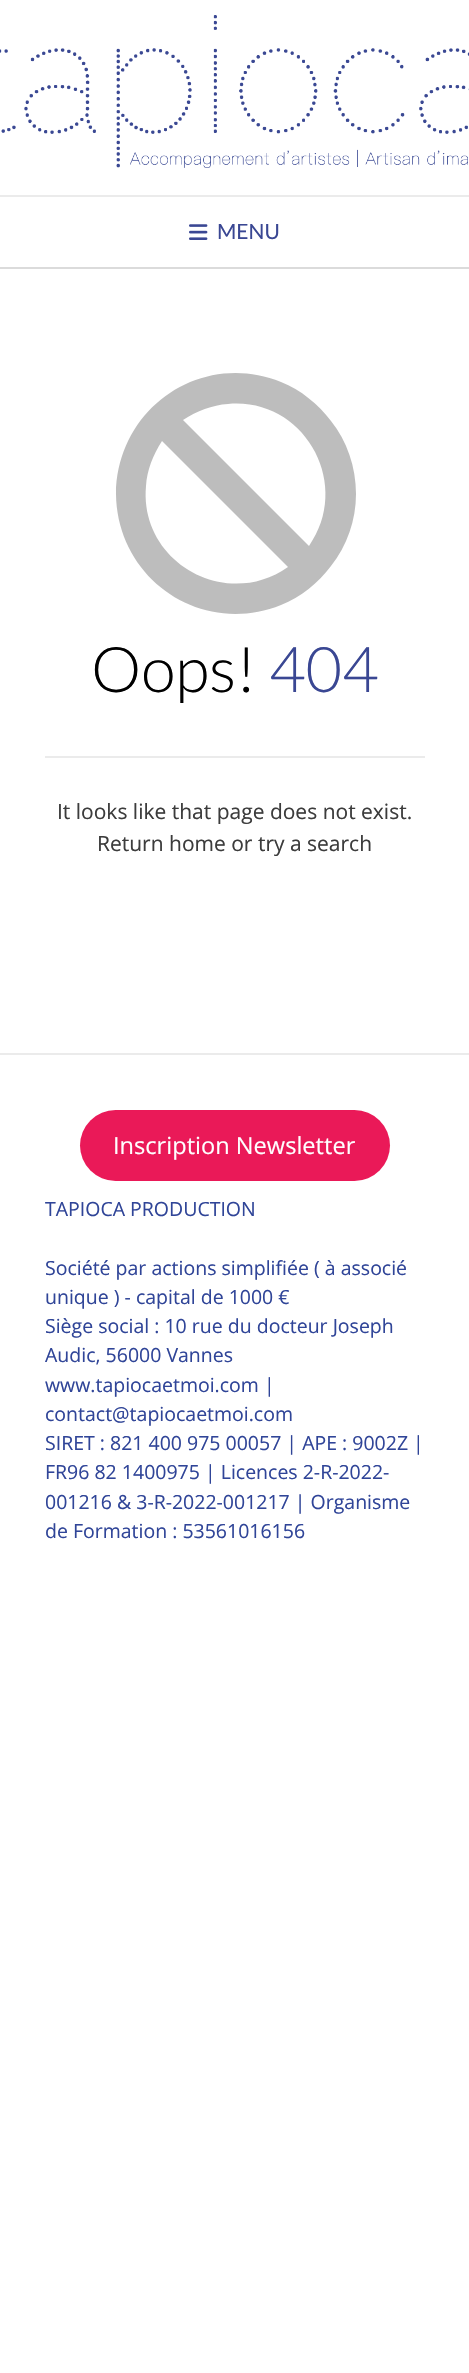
void draw(SkCanvas* canvas) {
    SkPaint paint;
    paint.setAntiAlias(true);
    canvas->clear(0xFFFFFFFF);
    paint.setColor(0xFFDBDBDB);
    canvas->drawRect(SkRect::MakeXYWH(0, 267, 469, 2), paint);
    canvas->drawImageRect(SkImages::DeferredFromEncodedData(SkData::MakeFromFileName("img1.png")), SkRect::MakeXYWH(0, 15, 469, 153), SkSamplingOptions());
    paint.setColor(0xFFEBEBEB);
    canvas->drawRect(SkRect::MakeXYWH(0, 195, 469, 2), paint);
    canvas->drawImageRect(SkImages::DeferredFromEncodedData(SkData::MakeFromFileName("img2.png")), SkRect::MakeXYWH(189, 224, 19, 16), SkSamplingOptions());
    SkFont font1(fontMgr->matchFamilyStyle("Lato", SkFontStyle::Normal()), 21);
    font1.setSubpixel(true);
    paint.setColor(0xFF3A4793);
    canvas->drawString("MENU", 217, 239, font1, paint);
    paint.setColor(0xFFBDBDBD);
    canvas->drawPath(SkPathBuilder().moveTo(288, 567).lineTo(162, 441).cubicTo(153, 455, 147, 470, 146, 486).cubicTo(139, 562, 226, 611, 288, 567).close().moveTo(309, 546).cubicTo(353, 484, 304, 397, 228, 404).cubicTo(212, 405, 197, 411, 183, 420).close().moveTo(116, 494).cubicTo(117, 408, 201, 350, 281, 382).cubicTo(301, 390, 318, 404, 331, 421).cubicTo(347, 441, 356, 467, 356, 494).cubicTo(356, 520, 347, 546, 331, 566).cubicTo(318, 583, 301, 597, 281, 605).cubicTo(201, 637, 117, 579, 116, 494).close().detach(), paint);
    paint.setColor(0xFFEBEBEB);
    canvas->drawRect(SkRect::MakeXYWH(45, 756, 380, 2), paint);
    SkFont font2(fontMgr->matchFamilyStyle("Lato", SkFontStyle(300, SkFontStyle::kNormal_Width, SkFontStyle::kUpright_Slant)), 63);
    font2.setSubpixel(true);
    paint.setColor(0xFF000000);
    canvas->drawString("Oops!", 91, 692, font2, paint);
    paint.setColor(0xFF3A4793);
    canvas->drawString("404", 269, 692, font2, paint);
    SkFont font3(fontMgr->matchFamilyStyle("Open Sans", SkFontStyle::Normal()), 21);
    font3.setSubpixel(true);
    paint.setColor(0xFF3C3C3C);
    canvas->drawString("It looks like that page does not exist.", 57, 819, font3, paint);
    canvas->drawString("Return home or try a search", 97, 851, font3, paint);
    paint.setColor(0xFFEBEBEB);
    canvas->drawRect(SkRect::MakeXYWH(0, 1053, 469, 2), paint);
    paint.setColor(0xFFEA1958);
    canvas->drawRoundRect(SkRect::MakeXYWH(80, 1110, 310, 71), 35.5f, 35.5f, paint);
    SkFont font4(fontMgr->matchFamilyStyle("Open Sans", SkFontStyle::Normal()), 23.6f);
    font4.setSubpixel(true);
    paint.setColor(0xFFFFFFFF);
    canvas->drawString("Inscription Newsletter", 113, 1154, font4, paint);
    SkFont font5(fontMgr->matchFamilyStyle("Open Sans", SkFontStyle::Normal()), 19.5f);
    font5.setSubpixel(true);
    paint.setColor(0xFF304598);
    canvas->drawString("TAPIOCA PRODUCTION", 45, 1216, font5, paint);
    canvas->drawString("Société par actions simplifiée ( à associé", 45, 1275, font5, paint);
    canvas->drawString("unique ) - capital de 1000 €", 45, 1304, font5, paint);
    canvas->drawString("Siège social : 10 rue du docteur Joseph", 45, 1333, font5, paint);
    canvas->drawString("Audic, 56000 Vannes", 45, 1362, font5, paint);
    canvas->drawString("www.tapiocaetmoi.com |", 45, 1392, font5, paint);
    canvas->drawString("contact@tapiocaetmoi.com", 45, 1421, font5, paint);
    canvas->drawString("SIRET : 821 400 975 00057 | APE : 9002Z |", 45, 1450, font5, paint);
    canvas->drawString("FR96 82 1400975 | Licences 2-R-2022-", 45, 1479, font5, paint);
    canvas->drawString("001216 & 3-R-2022-001217 | Organisme", 45, 1509, font5, paint);
    canvas->drawString("de Formation : 53561016156", 45, 1538, font5, paint);
}
